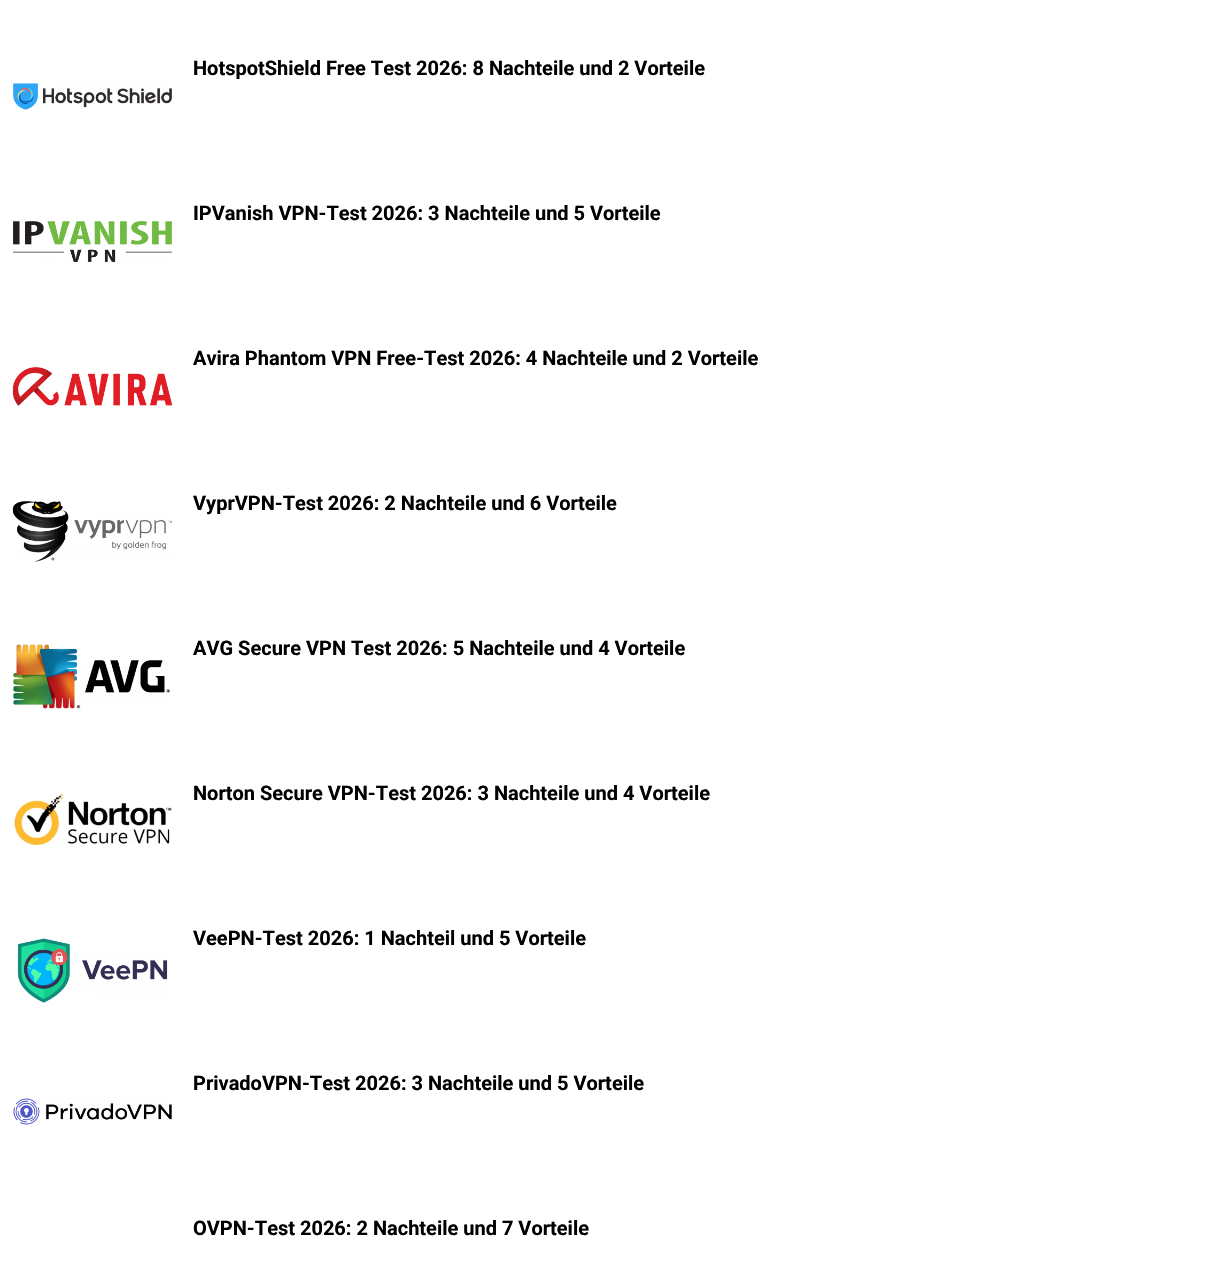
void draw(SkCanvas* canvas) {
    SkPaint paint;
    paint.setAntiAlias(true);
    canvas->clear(0xFFFFFFFF);
    SkFont font1(fontMgr->matchFamilyStyle("Roboto", SkFontStyle::Bold()), 20);
    font1.setSubpixel(true);
    paint.setColor(0xFF000000);
    canvas->drawString("HotspotShield Free Test 2026: 8 Nachteile und 2 Vorteile", 193, 75, font1, paint);
    canvas->drawImageRect(SkImages::DeferredFromEncodedData(SkData::MakeFromFileName("img1.png")), SkRect::MakeXYWH(13, 83, 159, 27), SkSamplingOptions());
    canvas->drawString("IPVanish VPN-Test 2026: 3 Nachteile und 5 Vorteile", 193, 220, font1, paint);
    canvas->drawImageRect(SkImages::DeferredFromEncodedData(SkData::MakeFromFileName("img2.png")), SkRect::MakeXYWH(13, 221, 159, 41), SkSamplingOptions());
    canvas->drawString("Avira Phantom VPN Free-Test 2026: 4 Nachteile und 2 Vorteile", 193, 365, font1, paint);
    canvas->drawImageRect(SkImages::DeferredFromEncodedData(SkData::MakeFromFileName("img3.png")), SkRect::MakeXYWH(12, 367, 161, 39), SkSamplingOptions());
    canvas->drawImageRect(SkImages::DeferredFromEncodedData(SkData::MakeFromFileName("img4.png")), SkRect::MakeXYWH(12, 501, 161, 61), SkSamplingOptions());
    canvas->drawString("VyprVPN-Test 2026: 2 Nachteile und 6 Vorteile", 193, 510, font1, paint);
    canvas->drawImageRect(SkImages::DeferredFromEncodedData(SkData::MakeFromFileName("img5.png")), SkRect::MakeXYWH(13, 644, 157, 65), SkSamplingOptions());
    canvas->drawString("AVG Secure VPN Test 2026: 5 Nachteile und 4 Vorteile", 193, 655, font1, paint);
    canvas->drawImageRect(SkImages::DeferredFromEncodedData(SkData::MakeFromFileName("img6.png")), SkRect::MakeXYWH(14, 793, 158, 52), SkSamplingOptions());
    canvas->drawString("Norton Secure VPN-Test 2026: 3 Nachteile und 4 Vorteile", 193, 800, font1, paint);
    canvas->drawImageRect(SkImages::DeferredFromEncodedData(SkData::MakeFromFileName("img7.png")), SkRect::MakeXYWH(17, 938, 151, 65), SkSamplingOptions());
    canvas->drawString("VeePN-Test 2026: 1 Nachteil und 5 Vorteile", 193, 945, font1, paint);
    canvas->drawString("PrivadoVPN-Test 2026: 3 Nachteile und 5 Vorteile", 193, 1090, font1, paint);
    canvas->drawImageRect(SkImages::DeferredFromEncodedData(SkData::MakeFromFileName("img8.png")), SkRect::MakeXYWH(13, 1098, 159, 27), SkSamplingOptions());
    canvas->drawString("OVPN-Test 2026: 2 Nachteile und 7 Vorteile", 193, 1235, font1, paint);
}
